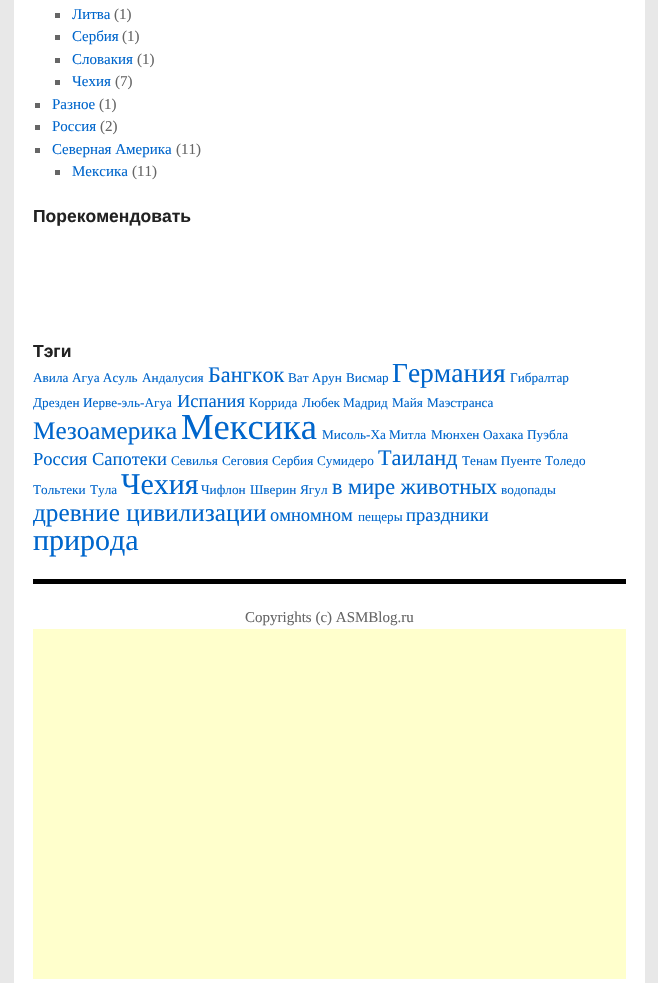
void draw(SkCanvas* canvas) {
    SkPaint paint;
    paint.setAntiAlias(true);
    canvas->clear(0xFFE8E8E8);
    paint.setColor(0xFFFFFFFF);
    canvas->drawRect(SkRect::MakeXYWH(14, 0, 631, 983), paint);
    paint.setColor(0xFF666666);
    canvas->drawRect(SkRect::MakeXYWH(55, 13, 5, 5), paint);
    SkFont font1(fontMgr->matchFamilyStyle("Liberation Serif", SkFontStyle::Normal()), 15);
    font1.setSubpixel(true);
    paint.setColor(0xFF0066CC);
    canvas->drawString("Литва", 72, 19, font1, paint);
    paint.setColor(0xFF666666);
    canvas->drawString("(1)", 114, 19, font1, paint);
    canvas->drawRect(SkRect::MakeXYWH(55, 35, 5, 5), paint);
    paint.setColor(0xFF0066CC);
    canvas->drawString("Сербия", 72, 41, font1, paint);
    paint.setColor(0xFF666666);
    canvas->drawString("(1)", 122, 41, font1, paint);
    canvas->drawRect(SkRect::MakeXYWH(55, 58, 5, 5), paint);
    paint.setColor(0xFF0066CC);
    canvas->drawString("Словакия", 72, 64, font1, paint);
    paint.setColor(0xFF666666);
    canvas->drawString("(1)", 137, 64, font1, paint);
    canvas->drawRect(SkRect::MakeXYWH(55, 80, 5, 5), paint);
    paint.setColor(0xFF0066CC);
    canvas->drawString("Чехия", 72, 86, font1, paint);
    paint.setColor(0xFF666666);
    canvas->drawString("(7)", 115, 86, font1, paint);
    canvas->drawRect(SkRect::MakeXYWH(35, 103, 5, 5), paint);
    paint.setColor(0xFF0066CC);
    canvas->drawString("Разное", 52, 109, font1, paint);
    paint.setColor(0xFF666666);
    canvas->drawString("(1)", 99, 109, font1, paint);
    canvas->drawRect(SkRect::MakeXYWH(35, 125, 5, 5), paint);
    paint.setColor(0xFF0066CC);
    canvas->drawString("Россия", 52, 131, font1, paint);
    paint.setColor(0xFF666666);
    canvas->drawString("(2)", 100, 131, font1, paint);
    canvas->drawRect(SkRect::MakeXYWH(35, 148, 5, 5), paint);
    paint.setColor(0xFF0066CC);
    canvas->drawString("Северная Америка", 52, 154, font1, paint);
    paint.setColor(0xFF666666);
    canvas->drawString("(11)", 176, 154, font1, paint);
    canvas->drawRect(SkRect::MakeXYWH(55, 170, 5, 5), paint);
    paint.setColor(0xFF0066CC);
    canvas->drawString("Мексика", 72, 176, font1, paint);
    paint.setColor(0xFF666666);
    canvas->drawString("(11)", 132, 176, font1, paint);
    SkFont font2(fontMgr->matchFamilyStyle("Liberation Sans", SkFontStyle::Bold()), 17.5f);
    font2.setSubpixel(true);
    paint.setColor(0xFF222222);
    canvas->drawString("Порекомендовать", 33, 222, font2, paint);
    canvas->drawString("Тэги", 33, 357, font2, paint);
    SkFont font3(fontMgr->matchFamilyStyle("Liberation Serif", SkFontStyle::Normal()), 13.25f);
    font3.setSubpixel(true);
    paint.setColor(0xFF0066CC);
    canvas->drawString("Авила", 33, 382, font3, paint);
    canvas->drawString("Агуа Асуль", 72, 382, font3, paint);
    canvas->drawString("Андалусия", 142, 382, font3, paint);
    SkFont font4(fontMgr->matchFamilyStyle("Liberation Serif", SkFontStyle::Normal()), 22.25f);
    font4.setSubpixel(true);
    canvas->drawString("Бангкок", 208, 382, font4, paint);
    canvas->drawString("Ват Арун", 288, 382, font3, paint);
    canvas->drawString("Висмар", 346, 382, font3, paint);
    SkFont font5(fontMgr->matchFamilyStyle("Liberation Serif", SkFontStyle::Normal()), 27.5f);
    font5.setSubpixel(true);
    canvas->drawString("Германия", 392, 382, font5, paint);
    canvas->drawString("Гибралтар", 510, 382, font3, paint);
    canvas->drawString("Дрезден", 33, 407, font3, paint);
    canvas->drawString("Иерве-эль-Агуа", 83, 407, font3, paint);
    SkFont font6(fontMgr->matchFamilyStyle("Liberation Serif", SkFontStyle::Normal()), 18.5f);
    font6.setSubpixel(true);
    canvas->drawString("Испания", 177, 407, font6, paint);
    canvas->drawString("Коррида", 249, 407, font3, paint);
    canvas->drawString("Любек", 302, 407, font3, paint);
    canvas->drawString("Мадрид", 343, 407, font3, paint);
    canvas->drawString("Майя", 392, 407, font3, paint);
    canvas->drawString("Маэстранса", 427, 407, font3, paint);
    SkFont font7(fontMgr->matchFamilyStyle("Liberation Serif", SkFontStyle::Normal()), 25.25f);
    font7.setSubpixel(true);
    canvas->drawString("Мезоамерика", 33, 439, font7, paint);
    SkFont font8(fontMgr->matchFamilyStyle("Liberation Serif", SkFontStyle::Normal()), 36.5f);
    font8.setSubpixel(true);
    canvas->drawString("Мексика", 181, 439, font8, paint);
    canvas->drawString("Мисоль-Ха", 322, 439, font3, paint);
    canvas->drawString("Митла", 389, 439, font3, paint);
    canvas->drawString("Мюнхен", 431, 439, font3, paint);
    canvas->drawString("Оахака", 483, 439, font3, paint);
    canvas->drawString("Пуэбла", 527, 439, font3, paint);
    canvas->drawString("Россия", 33, 465, font6, paint);
    canvas->drawString("Сапотеки", 92, 465, font6, paint);
    canvas->drawString("Севилья", 171, 465, font3, paint);
    canvas->drawString("Сеговия", 222, 465, font3, paint);
    canvas->drawString("Сербия", 272, 465, font3, paint);
    canvas->drawString("Сумидеро", 317, 465, font3, paint);
    canvas->drawString("Таиланд", 378, 465, font4, paint);
    canvas->drawString("Тенам Пуенте", 462, 465, font3, paint);
    canvas->drawString("Толедо", 545, 465, font3, paint);
    canvas->drawString("Тольтеки", 33, 494, font3, paint);
    canvas->drawString("Тула", 90, 494, font3, paint);
    SkFont font9(fontMgr->matchFamilyStyle("Liberation Serif", SkFontStyle::Normal()), 30);
    font9.setSubpixel(true);
    canvas->drawString("Чехия", 121, 494, font9, paint);
    canvas->drawString("Чифлон", 201, 494, font3, paint);
    canvas->drawString("Шверин", 250, 494, font3, paint);
    canvas->drawString("Ягул", 300, 494, font3, paint);
    canvas->drawString("в мире животных", 332, 494, font4, paint);
    canvas->drawString("водопады", 501, 494, font3, paint);
    canvas->drawString("древние цивилизации", 33, 521, font7, paint);
    canvas->drawString("омномном", 270, 521, font6, paint);
    canvas->drawString("пещеры", 358, 521, font3, paint);
    canvas->drawString("праздники", 406, 521, font6, paint);
    canvas->drawString("природа", 33, 550, font9, paint);
    paint.setColor(0xFF000000);
    canvas->drawRect(SkRect::MakeXYWH(33, 579, 593, 5), paint);
    paint.setColor(0xFF666666);
    canvas->drawString("Copyrights (c) ASMBlog.ru", 245, 622, font1, paint);
    paint.setColor(0xFFFFFFCC);
    canvas->drawRect(SkRect::MakeXYWH(33, 629, 593, 350), paint);
}
